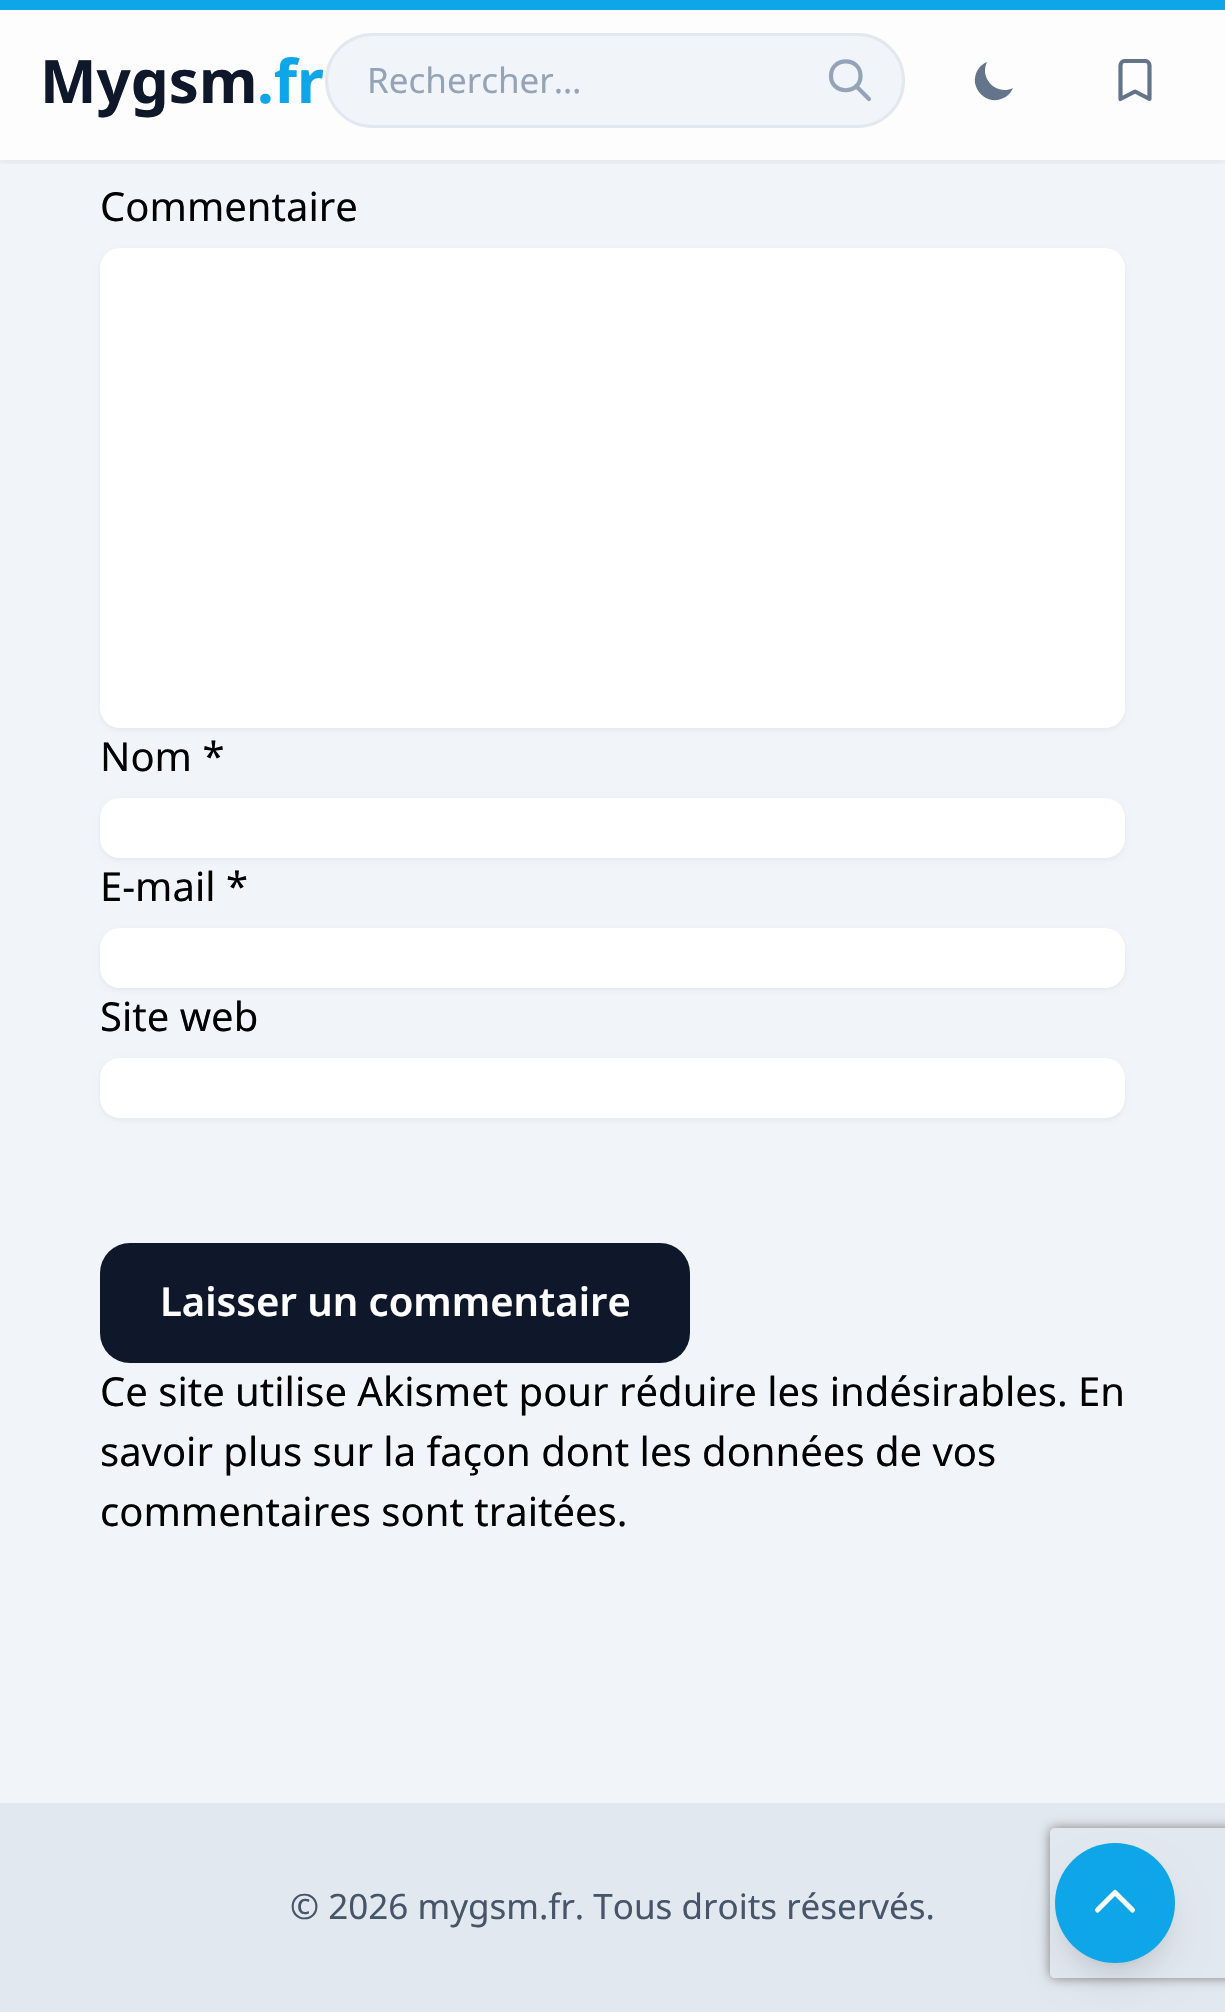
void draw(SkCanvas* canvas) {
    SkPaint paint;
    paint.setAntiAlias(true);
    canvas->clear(0xFFF1F5F9);
    canvas->save();
    canvas->clipRect(SkRect::MakeXYWH(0, 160, 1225, 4));
    paint.setColor(0x0D000000);
    paint.setMaskFilter(SkMaskFilter::MakeBlur(kNormal_SkBlurStyle, 2.5f));
    canvas->drawRect(SkRect::MakeXYWH(0, 3, 1225, 160), paint);
    paint.setMaskFilter(nullptr);
    canvas->restore();
    paint.setColor(0xFF0EA5E9);
    canvas->drawRect(SkRect::MakeXYWH(0, 0, 1225, 10), paint);
    paint.setColor(0xCCFFFFFF);
    canvas->drawRect(SkRect::MakeXYWH(0, 10, 1225, 150), paint);
    SkFont font1(fontMgr->matchFamilyStyle("Noto Sans", SkFontStyle::Bold()), 60);
    font1.setSubpixel(true);
    paint.setColor(0xFF0F172A);
    canvas->drawString("Mygsm", 40, 103, font1, paint);
    paint.setColor(0xFF0EA5E9);
    canvas->drawString(".fr", 257, 103, font1, paint);
    paint.setColor(0xFFF1F5F9);
    canvas->drawRoundRect(SkRect::MakeXYWH(326.5f, 34.5f, 577, 92), 46, 46, paint);
    paint.setStyle(SkPaint::kStroke_Style);
    paint.setStrokeWidth(3);
    paint.setColor(0xFFE2E8F0);
    canvas->drawRoundRect(SkRect::MakeXYWH(326.5f, 34.5f, 577, 92), 46, 46, paint);
    SkFont font2(fontMgr->matchFamilyStyle("Noto Sans", SkFontStyle::Normal()), 35);
    font2.setSubpixel(true);
    paint.setStyle(SkPaint::kFill_Style);
    paint.setColor(0xFF94A3B8);
    canvas->drawString("Rechercher…", 367, 93, font2, paint);
    paint.setStyle(SkPaint::kStroke_Style);
    paint.setStrokeWidth(4.2f);
    paint.setStrokeCap(SkPaint::kRound_Cap);
    paint.setStrokeJoin(SkPaint::kRound_Join);
    canvas->drawPath(SkPathBuilder().moveTo(869, 99).lineTo(856, 86).moveTo(860.5f, 76).cubicTo(860.5f, 95, 831, 95, 831, 76).cubicTo(831, 56.5f, 860.5f, 56.5f, 860.5f, 76).close().detach(), paint);
    paint.setStyle(SkPaint::kFill_Style);
    paint.setColor(0xFF64748B);
    canvas->drawPath(SkPathBuilder().moveTo(1013, 88).cubicTo(996.5f, 96, 979, 78.5f, 987, 62).cubicTo(978.5f, 65.5f, 974, 74, 975, 83).cubicTo(976.5f, 91.5f, 983.5f, 98.5f, 992, 100).cubicTo(1001, 101, 1009.5f, 96.5f, 1013, 88).close().detach(), paint);
    paint.setStyle(SkPaint::kStroke_Style);
    canvas->drawPath(SkPathBuilder().moveTo(1120.5f, 65.5f).cubicTo(1120.5f, 63, 1122.5f, 61, 1124.5f, 61).lineTo(1145.5f, 61).cubicTo(1147.5f, 61, 1149.5f, 63, 1149.5f, 65.5f).lineTo(1149.5f, 99).lineTo(1135, 91.5f).lineTo(1120.5f, 99).close().detach(), paint);
    SkFont font3(fontMgr->matchFamilyStyle("Noto Sans", SkFontStyle::Normal()), 40);
    font3.setSubpixel(true);
    paint.setStyle(SkPaint::kFill_Style);
    paint.setColor(0xFF000000);
    canvas->drawString("Commentaire", 100, 221, font3, paint);
    paint.setColor(0x0D000000);
    paint.setMaskFilter(SkMaskFilter::MakeBlur(kNormal_SkBlurStyle, 2.5f));
    canvas->drawRoundRect(SkRect::MakeXYWH(100, 250, 1025, 480), 20, 20, paint);
    paint.setMaskFilter(nullptr);
    paint.setColor(0xFFFFFFFF);
    canvas->drawRoundRect(SkRect::MakeXYWH(100, 248, 1025, 480), 20, 20, paint);
    paint.setColor(0xFF000000);
    canvas->drawString("Nom *", 100, 771, font3, paint);
    paint.setColor(0x0D000000);
    paint.setMaskFilter(SkMaskFilter::MakeBlur(kNormal_SkBlurStyle, 2.5f));
    canvas->drawRoundRect(SkRect::MakeXYWH(100, 800, 1025, 60), 20, 20, paint);
    paint.setMaskFilter(nullptr);
    paint.setColor(0xFFFFFFFF);
    canvas->drawRoundRect(SkRect::MakeXYWH(100, 798, 1025, 60), 20, 20, paint);
    paint.setColor(0xFF000000);
    canvas->drawString("E-mail *", 100, 901, font3, paint);
    paint.setColor(0x0D000000);
    paint.setMaskFilter(SkMaskFilter::MakeBlur(kNormal_SkBlurStyle, 2.5f));
    canvas->drawRoundRect(SkRect::MakeXYWH(100, 930, 1025, 60), 20, 20, paint);
    paint.setMaskFilter(nullptr);
    paint.setColor(0xFFFFFFFF);
    canvas->drawRoundRect(SkRect::MakeXYWH(100, 928, 1025, 60), 20, 20, paint);
    paint.setColor(0xFF000000);
    canvas->drawString("Site web", 100, 1031, font3, paint);
    paint.setColor(0x0D000000);
    paint.setMaskFilter(SkMaskFilter::MakeBlur(kNormal_SkBlurStyle, 2.5f));
    canvas->drawRoundRect(SkRect::MakeXYWH(100, 1060, 1025, 60), 20, 20, paint);
    paint.setMaskFilter(nullptr);
    paint.setColor(0xFFFFFFFF);
    canvas->drawRoundRect(SkRect::MakeXYWH(100, 1058, 1025, 60), 20, 20, paint);
    paint.setColor(0xFF0F172A);
    canvas->drawRoundRect(SkRect::MakeXYWH(100, 1243, 590, 120), 30, 30, paint);
    SkFont font4(fontMgr->matchFamilyStyle("Noto Sans", SkFontStyle(600, SkFontStyle::kNormal_Width, SkFontStyle::kUpright_Slant)), 40);
    font4.setSubpixel(true);
    paint.setColor(0xFFFFFFFF);
    canvas->drawString("Laisser un commentaire", 160, 1316, font4, paint);
    paint.setColor(0xFF000000);
    canvas->drawString("Ce site utilise Akismet pour réduire les indésirables. En", 100, 1406, font3, paint);
    canvas->drawString("savoir plus sur la façon dont les données de vos", 100, 1466, font3, paint);
    canvas->drawString("commentaires sont traitées.", 100, 1526, font3, paint);
    paint.setColor(0xFFE2E8F0);
    canvas->drawRect(SkRect::MakeXYWH(0, 1803, 1225, 209), paint);
    paint.setColor(0xFF475569);
    canvas->drawString("© 2026 mygsm.fr. Tous droits réservés.", 290, 1919, font2, paint);
    canvas->save();
    canvas->clipPath(SkPathBuilder(SkPathFillType::kEvenOdd).moveTo(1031, 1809).lineTo(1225, 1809).lineTo(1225, 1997).lineTo(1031, 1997).close().moveTo(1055, 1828).lineTo(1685, 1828).cubicTo(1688, 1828, 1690, 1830, 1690, 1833).lineTo(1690, 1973).cubicTo(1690, 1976, 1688, 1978, 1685, 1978).lineTo(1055, 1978).cubicTo(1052, 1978, 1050, 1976, 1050, 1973).lineTo(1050, 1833).cubicTo(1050, 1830, 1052, 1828, 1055, 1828).close().detach(), true);
    paint.setColor(0xFF808080);
    paint.setMaskFilter(SkMaskFilter::MakeBlur(kNormal_SkBlurStyle, 6));
    canvas->drawRoundRect(SkRect::MakeXYWH(1050, 1828, 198, 150), 5, 5, paint);
    paint.setMaskFilter(nullptr);
    canvas->restore();
    paint.setColor(0x1A000000);
    paint.setMaskFilter(SkMaskFilter::MakeBlur(kNormal_SkBlurStyle, 7.5f));
    canvas->drawRoundRect(SkRect::MakeXYWH(1065, 1863, 100, 100), 50, 50, paint);
    paint.setMaskFilter(nullptr);
    paint.setMaskFilter(SkMaskFilter::MakeBlur(kNormal_SkBlurStyle, 19));
    canvas->drawRoundRect(SkRect::MakeXYWH(1063, 1875, 105, 105), 52.5f, 52.5f, paint);
    paint.setMaskFilter(nullptr);
    paint.setColor(0xFF0EA5E9);
    canvas->drawCircle(1115, 1903, 60, paint);
    paint.setStyle(SkPaint::kStroke_Style);
    paint.setStrokeWidth(5);
    paint.setColor(0xFFFFFFFF);
    canvas->drawPath(SkPathBuilder().moveTo(1097.5f, 1910).lineTo(1115, 1892.5f).lineTo(1132.5f, 1910).detach(), paint);
}
